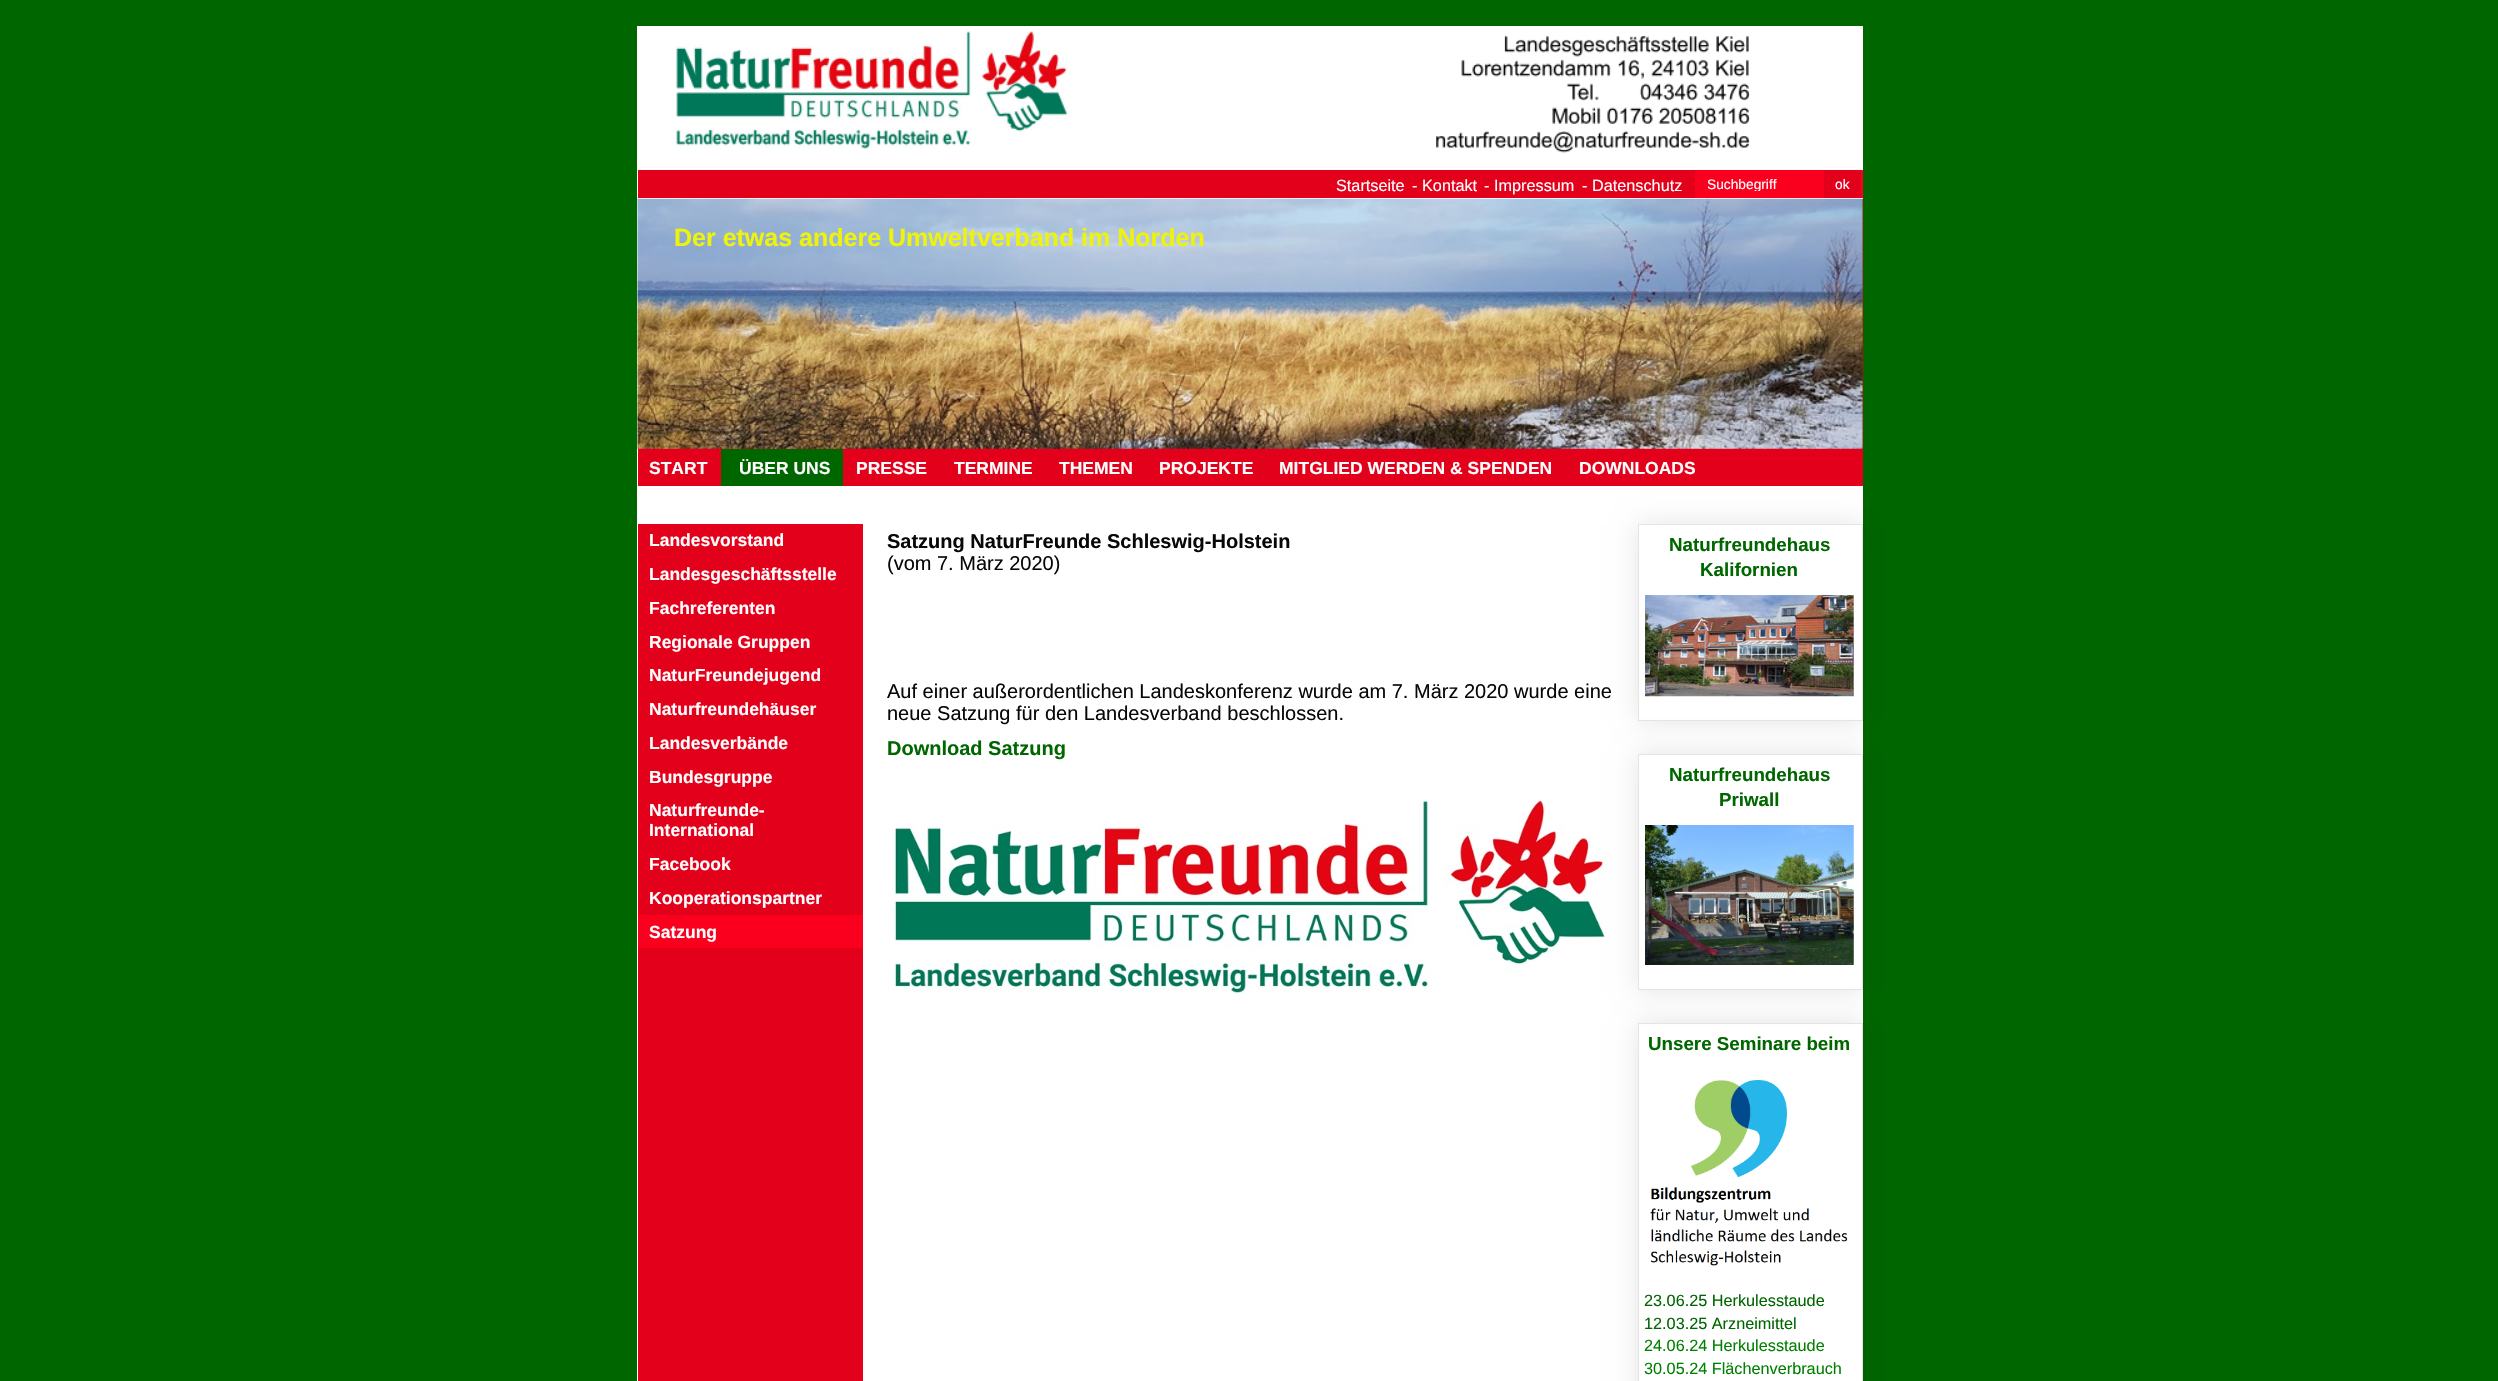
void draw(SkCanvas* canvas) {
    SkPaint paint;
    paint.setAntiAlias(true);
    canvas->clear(0xFF006600);
    paint.setColor(0xFFFFFFFF);
    canvas->drawRect(SkRect::MakeXYWH(637, 26, 1226, 1355), paint);
    canvas->drawImageRect(SkImages::DeferredFromEncodedData(SkData::MakeFromFileName("img1.png")), SkRect::MakeXYWH(676, 31, 1074, 122), SkSamplingOptions());
    paint.setColor(0xFFE3001B);
    canvas->drawRect(SkRect::MakeXYWH(638, 170, 1057, 28), paint);
    SkFont font1(fontMgr->matchFamilyStyle("Liberation Sans", SkFontStyle::Normal()), 16.25f);
    font1.setSubpixel(true);
    paint.setColor(0xFFFFFFFF);
    canvas->drawString("Startseite", 1336, 191, font1, paint);
    canvas->drawString("-", 1412, 191, font1, paint);
    canvas->drawString("Kontakt", 1422, 191, font1, paint);
    canvas->drawString("-", 1484, 191, font1, paint);
    canvas->drawString("Impressum", 1494, 191, font1, paint);
    canvas->drawString("-", 1582, 191, font1, paint);
    canvas->drawString("Datenschutz", 1592, 191, font1, paint);
    paint.setColor(0xFFFA001E);
    canvas->drawRect(SkRect::MakeXYWH(1695, 170, 168, 28), paint);
    canvas->save();
    canvas->clipRect(SkRect::MakeXYWH(1708, 176, 100, 15));
    SkFont font2(fontMgr->matchFamilyStyle("Liberation Sans", SkFontStyle::Normal()), 13.75f);
    font2.setSubpixel(true);
    paint.setColor(0xFFFFFFFF);
    canvas->drawString("Suchbegriff", 1707, 189, font2, paint);
    canvas->restore();
    paint.setColor(0xFFE3001B);
    canvas->drawRect(SkRect::MakeXYWH(1824, 170, 37, 28), paint);
    paint.setColor(0xFFFFFFFF);
    canvas->drawString("ok", 1835, 189, font2, paint);
    paint.setColor(0xFFE3001B);
    canvas->drawRect(SkRect::MakeXYWH(638, 199, 1225, 287), paint);
    canvas->drawImageRect(SkImages::DeferredFromEncodedData(SkData::MakeFromFileName("img2.png")), SkRect::MakeXYWH(637, 198, 1226, 251), SkSamplingOptions());
    SkFont font3(fontMgr->matchFamilyStyle("Liberation Sans", SkFontStyle::Bold()), 25);
    font3.setSubpixel(true);
    paint.setColor(0xFFEEF30C);
    canvas->drawString("Der etwas andere Umweltverband im Norden", 674, 246, font3, paint);
    SkFont font4(fontMgr->matchFamilyStyle("Liberation Sans", SkFontStyle::Bold()), 17.5f);
    font4.setSubpixel(true);
    paint.setColor(0xFFFFFFFF);
    canvas->drawString("START", 649, 474, font4, paint);
    paint.setColor(0xFF006600);
    canvas->drawRect(SkRect::MakeXYWH(721, 449, 122, 37), paint);
    paint.setColor(0xFFFFFFFF);
    canvas->drawString("ÜBER UNS", 739, 474, font4, paint);
    canvas->drawString("PRESSE", 856, 474, font4, paint);
    canvas->drawString("TERMINE", 954, 474, font4, paint);
    canvas->drawString("THEMEN", 1059, 474, font4, paint);
    canvas->drawString("PROJEKTE", 1159, 474, font4, paint);
    canvas->drawString("MITGLIED WERDEN & SPENDEN", 1279, 474, font4, paint);
    canvas->drawString("DOWNLOADS", 1579, 474, font4, paint);
    paint.setColor(0xFFE3001B);
    canvas->drawRect(SkRect::MakeXYWH(638, 524, 225, 857), paint);
    paint.setColor(0xFFFFFFFF);
    canvas->drawString("Landesvorstand", 649, 546, font4, paint);
    canvas->drawString("Landesgeschäftsstelle", 649, 580, font4, paint);
    canvas->drawString("Fachreferenten", 649, 614, font4, paint);
    canvas->drawString("Regionale Gruppen", 649, 648, font4, paint);
    canvas->drawString("NaturFreundejugend", 649, 681, font4, paint);
    canvas->drawString("Naturfreundehäuser", 649, 715, font4, paint);
    canvas->drawString("Landesverbände", 649, 749, font4, paint);
    canvas->drawString("Bundesgruppe", 649, 783, font4, paint);
    canvas->drawString("Naturfreunde-", 649, 816, font4, paint);
    canvas->drawString("International", 649, 836, font4, paint);
    canvas->drawString("Facebook", 649, 870, font4, paint);
    canvas->drawString("Kooperationspartner", 649, 904, font4, paint);
    paint.setColor(0xFFFA001E);
    canvas->drawRect(SkRect::MakeXYWH(638, 915, 225, 33), paint);
    paint.setColor(0xFFFFFFFF);
    canvas->drawString("Satzung", 649, 938, font4, paint);
    SkFont font5(fontMgr->matchFamilyStyle("Liberation Sans", SkFontStyle::Bold()), 20);
    font5.setSubpixel(true);
    paint.setColor(0xFF070808);
    canvas->drawString("Satzung NaturFreunde Schleswig-Holstein", 887, 548, font5, paint);
    SkFont font6(fontMgr->matchFamilyStyle("Liberation Sans", SkFontStyle::Normal()), 20);
    font6.setSubpixel(true);
    canvas->drawString("(vom 7. März 2020)", 887, 570, font6, paint);
    canvas->drawString("Auf einer außerordentlichen Landeskonferenz wurde am 7. März 2020 wurde eine", 887, 698, font6, paint);
    canvas->drawString("neue Satzung für den Landesverband beschlossen.", 887, 720, font6, paint);
    paint.setColor(0xFF006600);
    canvas->drawString("Download Satzung", 887, 755, font5, paint);
    canvas->drawImageRect(SkImages::DeferredFromEncodedData(SkData::MakeFromFileName("img3.png")), SkRect::MakeXYWH(894, 800, 712, 194), SkSamplingOptions());
    canvas->save();
    canvas->clipPath(SkPathBuilder(SkPathFillType::kEvenOdd).moveTo(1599, 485).lineTo(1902, 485).lineTo(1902, 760).lineTo(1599, 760).close().moveTo(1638, 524).lineTo(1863, 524).lineTo(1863, 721).lineTo(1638, 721).close().detach(), true);
    paint.setColor(0x1A000000);
    paint.setMaskFilter(SkMaskFilter::MakeBlur(kNormal_SkBlurStyle, 12.5f));
    canvas->drawRect(SkRect::MakeXYWH(1638, 524, 225, 197), paint);
    paint.setMaskFilter(nullptr);
    canvas->restore();
    paint.setStyle(SkPaint::kStroke_Style);
    paint.setStrokeWidth(1);
    canvas->drawRect(SkRect::MakeXYWH(1638.5f, 524.5f, 224, 196), paint);
    SkFont font7(fontMgr->matchFamilyStyle("Liberation Sans", SkFontStyle::Bold()), 18.75f);
    font7.setSubpixel(true);
    paint.setStyle(SkPaint::kFill_Style);
    paint.setColor(0xFF006600);
    canvas->drawString("Naturfreundehaus", 1669, 551, font7, paint);
    canvas->drawString("Kalifornien", 1700, 576, font7, paint);
    canvas->drawImageRect(SkImages::DeferredFromEncodedData(SkData::MakeFromFileName("img4.png")), SkRect::MakeXYWH(1645, 595, 209, 102), SkSamplingOptions());
    canvas->save();
    canvas->clipPath(SkPathBuilder(SkPathFillType::kEvenOdd).moveTo(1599, 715).lineTo(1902, 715).lineTo(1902, 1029).lineTo(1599, 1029).close().moveTo(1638, 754).lineTo(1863, 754).lineTo(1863, 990).lineTo(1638, 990).close().detach(), true);
    paint.setColor(0x1A000000);
    paint.setMaskFilter(SkMaskFilter::MakeBlur(kNormal_SkBlurStyle, 12.5f));
    canvas->drawRect(SkRect::MakeXYWH(1638, 754, 225, 236), paint);
    paint.setMaskFilter(nullptr);
    canvas->restore();
    paint.setStyle(SkPaint::kStroke_Style);
    canvas->drawRect(SkRect::MakeXYWH(1638.5f, 754.5f, 224, 235), paint);
    paint.setStyle(SkPaint::kFill_Style);
    paint.setColor(0xFF006600);
    canvas->drawString("Naturfreundehaus", 1669, 781, font7, paint);
    canvas->drawString("Priwall", 1719, 806, font7, paint);
    canvas->drawImageRect(SkImages::DeferredFromEncodedData(SkData::MakeFromFileName("img5.png")), SkRect::MakeXYWH(1645, 825, 209, 140), SkSamplingOptions());
    canvas->save();
    canvas->clipPath(SkPathBuilder(SkPathFillType::kEvenOdd).moveTo(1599, 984).lineTo(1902, 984).lineTo(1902, 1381).lineTo(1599, 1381).close().moveTo(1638, 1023).lineTo(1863, 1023).lineTo(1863, 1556).lineTo(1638, 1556).close().detach(), true);
    paint.setColor(0x1A000000);
    paint.setMaskFilter(SkMaskFilter::MakeBlur(kNormal_SkBlurStyle, 12.5f));
    canvas->drawRect(SkRect::MakeXYWH(1638, 1023, 225, 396), paint);
    paint.setMaskFilter(nullptr);
    canvas->restore();
    paint.setStyle(SkPaint::kStroke_Style);
    canvas->drawRect(SkRect::MakeXYWH(1638.5f, 1023.5f, 224, 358), paint);
    paint.setStyle(SkPaint::kFill_Style);
    paint.setColor(0xFF006600);
    canvas->drawString("Unsere Seminare beim", 1648, 1050, font7, paint);
    canvas->drawImageRect(SkImages::DeferredFromEncodedData(SkData::MakeFromFileName("img6.png")), SkRect::MakeXYWH(1650, 1080, 198, 186), SkSamplingOptions());
    canvas->drawString("23.06.25 Herkulesstaude", 1644, 1306, font1, paint);
    canvas->drawString("12.03.25 Arzneimittel", 1644, 1329, font1, paint);
    paint.setColor(0xFF008000);
    canvas->drawString("24.06.24 Herkulesstaude", 1644, 1351, font1, paint);
    canvas->drawString("30.05.24 Flächenverbrauch", 1644, 1374, font1, paint);
}
